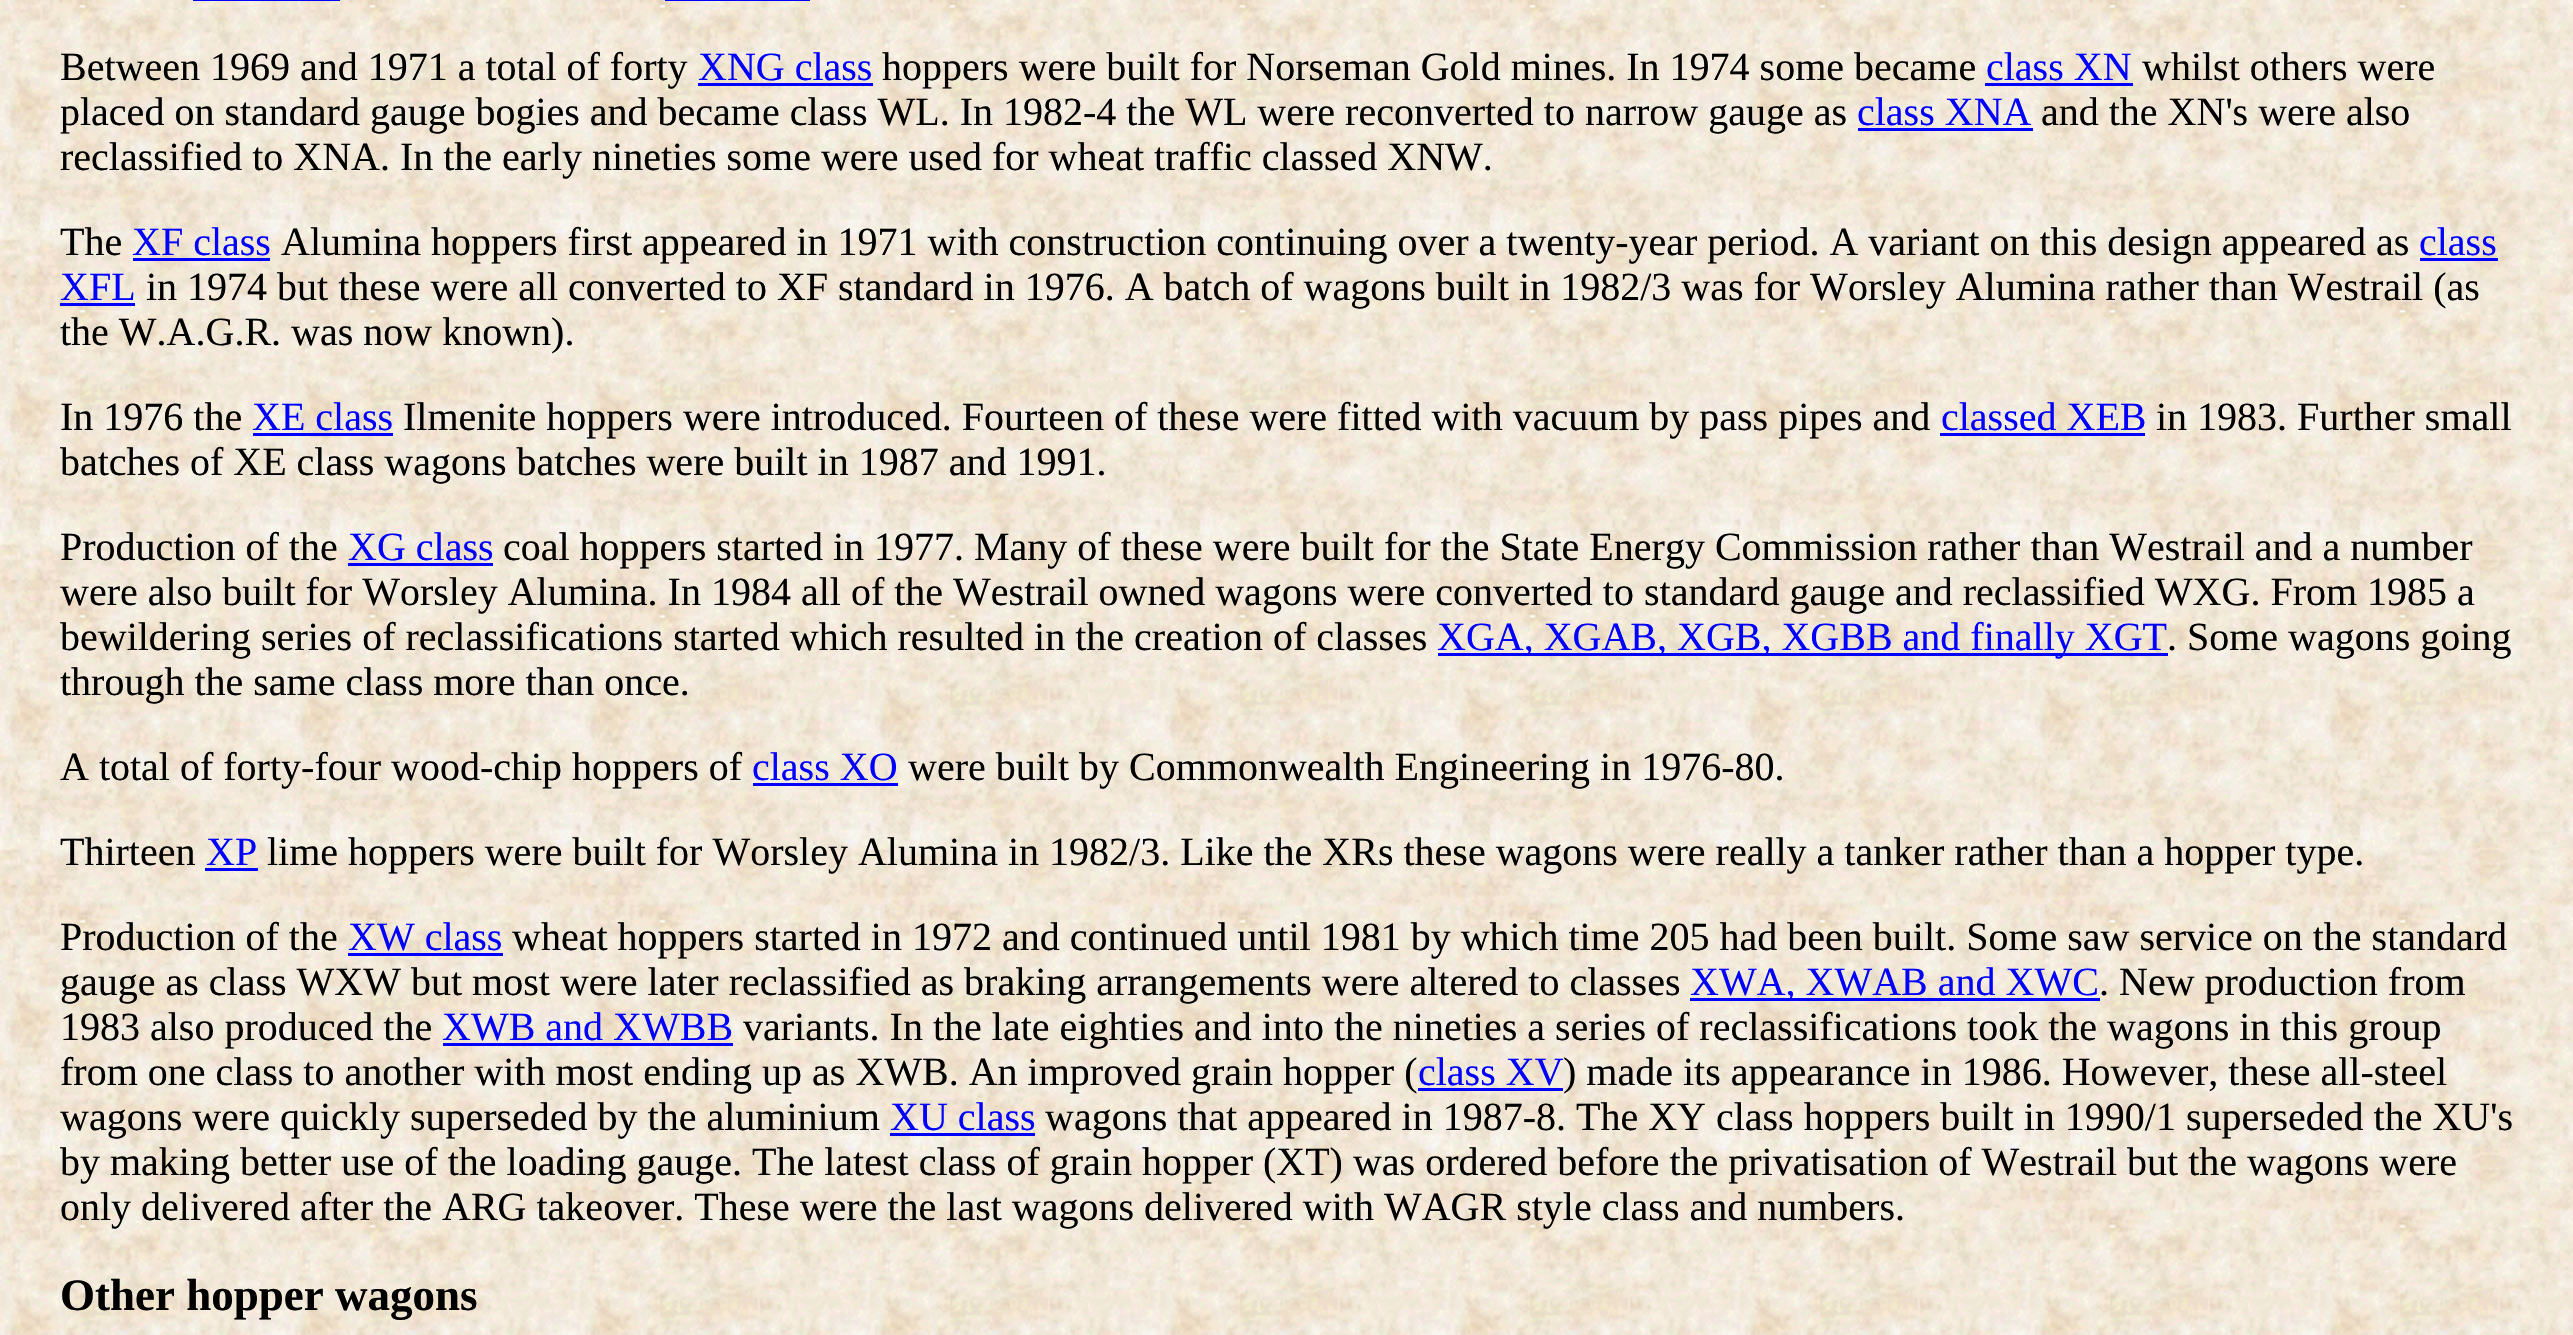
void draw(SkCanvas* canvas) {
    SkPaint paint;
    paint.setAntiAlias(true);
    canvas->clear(0xFFFFFFFF);
    canvas->drawImageRect(SkImages::DeferredFromEncodedData(SkData::MakeFromFileName("img1.png")), SkRect::MakeXYWH(0, 0, 2573, 1335), SkSamplingOptions());
    paint.setColor(0xFF0000FF);
    canvas->drawRect(SkRect::MakeXYWH(193, 0, 147, 1), paint);
    canvas->drawRect(SkRect::MakeXYWH(665, 0, 145, 1), paint);
    SkFont font1(fontMgr->matchFamilyStyle("Liberation Serif", SkFontStyle::Normal()), 40);
    font1.setSubpixel(true);
    paint.setColor(0xFF000000);
    canvas->drawString("Between 1969 and 1971 a total of forty", 60, 80, font1, paint);
    paint.setColor(0xFF0000FF);
    canvas->drawString("XNG class", 698, 80, font1, paint);
    canvas->drawRect(SkRect::MakeXYWH(698, 83, 175, 3), paint);
    paint.setColor(0xFF000000);
    canvas->drawString("hoppers were built for Norseman Gold mines. In 1974 some became", 882, 80, font1, paint);
    paint.setColor(0xFF0000FF);
    canvas->drawString("class XN", 1986, 80, font1, paint);
    canvas->drawRect(SkRect::MakeXYWH(1985, 83, 148, 3), paint);
    paint.setColor(0xFF000000);
    canvas->drawString("whilst others were", 2142, 80, font1, paint);
    canvas->drawString("placed on standard gauge bogies and became class WL. In 1982-4 the WL were reconverted to narrow gauge as", 60, 125, font1, paint);
    paint.setColor(0xFF0000FF);
    canvas->drawString("class XNA", 1857, 125, font1, paint);
    canvas->drawRect(SkRect::MakeXYWH(1858, 128, 175, 3), paint);
    paint.setColor(0xFF000000);
    canvas->drawString("and the XN's were also", 2041, 125, font1, paint);
    canvas->drawString("reclassified to XNA. In the early nineties some were used for wheat traffic classed XNW.", 60, 170, font1, paint);
    canvas->drawString("The", 60, 255, font1, paint);
    paint.setColor(0xFF0000FF);
    canvas->drawString("XF class", 132, 255, font1, paint);
    canvas->drawRect(SkRect::MakeXYWH(133, 258, 137, 3), paint);
    paint.setColor(0xFF000000);
    canvas->drawString("Alumina hoppers first appeared in 1971 with construction continuing over a twenty-year period. A variant on this design appeared as", 281, 255, font1, paint);
    paint.setColor(0xFF0000FF);
    canvas->drawString("class", 2419, 255, font1, paint);
    canvas->drawRect(SkRect::MakeXYWH(2420, 258, 78, 3), paint);
    canvas->drawString("XFL", 60, 300, font1, paint);
    canvas->drawRect(SkRect::MakeXYWH(60, 303, 75, 3), paint);
    paint.setColor(0xFF000000);
    canvas->drawString("in 1974 but these were all converted to XF standard in 1976. A batch of wagons built in 1982/3 was for Worsley Alumina rather than Westrail (as", 146, 300, font1, paint);
    canvas->drawString("the W.A.G.R. was now known).", 60, 345, font1, paint);
    canvas->drawString("In 1976 the", 60, 430, font1, paint);
    paint.setColor(0xFF0000FF);
    canvas->drawString("XE class", 252, 430, font1, paint);
    canvas->drawRect(SkRect::MakeXYWH(253, 433, 140, 3), paint);
    paint.setColor(0xFF000000);
    canvas->drawString("Ilmenite hoppers were introduced. Fourteen of these were fitted with vacuum by pass pipes and", 403, 430, font1, paint);
    paint.setColor(0xFF0000FF);
    canvas->drawString("classed XEB", 1941, 430, font1, paint);
    canvas->drawRect(SkRect::MakeXYWH(1940, 433, 205, 3), paint);
    paint.setColor(0xFF000000);
    canvas->drawString("in 1983. Further small", 2156, 430, font1, paint);
    canvas->drawString("batches of XE class wagons batches were built in 1987 and 1991.", 60, 475, font1, paint);
    canvas->drawString("Production of the", 60, 560, font1, paint);
    paint.setColor(0xFF0000FF);
    canvas->drawString("XG class", 348, 560, font1, paint);
    canvas->drawRect(SkRect::MakeXYWH(348, 563, 145, 3), paint);
    paint.setColor(0xFF000000);
    canvas->drawString("coal hoppers started in 1977. Many of these were built for the State Energy Commission rather than Westrail and a number", 503, 560, font1, paint);
    canvas->drawString("were also built for Worsley Alumina. In 1984 all of the Westrail owned wagons were converted to standard gauge and reclassified WXG. From 1985 a", 60, 605, font1, paint);
    canvas->drawString("bewildering series of reclassifications started which resulted in the creation of classes", 60, 650, font1, paint);
    paint.setColor(0xFF0000FF);
    canvas->drawRect(SkRect::MakeXYWH(1438, 653, 730, 3), paint);
    canvas->drawString("XGA, XGAB, XGB, XGBB and finally XGT", 1437, 650, font1, paint);
    paint.setColor(0xFF000000);
    canvas->drawString(". Some wagons going", 2167, 650, font1, paint);
    canvas->drawString("through the same class more than once.", 60, 695, font1, paint);
    canvas->drawString("A total of forty-four wood-chip hoppers of", 60, 780, font1, paint);
    paint.setColor(0xFF0000FF);
    canvas->drawString("class XO", 752, 780, font1, paint);
    canvas->drawRect(SkRect::MakeXYWH(753, 783, 145, 3), paint);
    paint.setColor(0xFF000000);
    canvas->drawString("were built by Commonwealth Engineering in 1976-80.", 908, 780, font1, paint);
    canvas->drawString("Thirteen", 60, 865, font1, paint);
    paint.setColor(0xFF0000FF);
    canvas->drawString("XP", 206, 865, font1, paint);
    canvas->drawRect(SkRect::MakeXYWH(205, 868, 53, 3), paint);
    paint.setColor(0xFF000000);
    canvas->drawString("lime hoppers were built for Worsley Alumina in 1982/3. Like the XRs these wagons were really a tanker rather than a hopper type.", 267, 865, font1, paint);
    canvas->drawString("Production of the", 60, 950, font1, paint);
    paint.setColor(0xFF0000FF);
    canvas->drawString("XW class", 348, 950, font1, paint);
    canvas->drawRect(SkRect::MakeXYWH(348, 953, 155, 3), paint);
    paint.setColor(0xFF000000);
    canvas->drawString("wheat hoppers started in 1972 and continued until 1981 by which time 205 had been built. Some saw service on the standard", 512, 950, font1, paint);
    canvas->drawString("gauge as class WXW but most were later reclassified as braking arrangements were altered to classes", 60, 995, font1, paint);
    paint.setColor(0xFF0000FF);
    canvas->drawRect(SkRect::MakeXYWH(1690, 998, 410, 3), paint);
    canvas->drawString("XWA, XWAB and XWC", 1690, 995, font1, paint);
    paint.setColor(0xFF000000);
    canvas->drawString(". New production from", 2099, 995, font1, paint);
    canvas->drawString("1983 also produced the", 60, 1040, font1, paint);
    paint.setColor(0xFF0000FF);
    canvas->drawString("XWB and XWBB", 442, 1040, font1, paint);
    canvas->drawRect(SkRect::MakeXYWH(443, 1043, 290, 3), paint);
    paint.setColor(0xFF000000);
    canvas->drawString("variants. In the late eighties and into the nineties a series of reclassifications took the wagons in this group", 743, 1040, font1, paint);
    canvas->drawString("from one class to another with most ending up as XWB. An improved grain hopper (", 60, 1085, font1, paint);
    paint.setColor(0xFF0000FF);
    canvas->drawString("class XV", 1418, 1085, font1, paint);
    paint.setColor(0xFF000000);
    canvas->drawString(") made its appearance in 1986. However, these all-steel", 1563, 1085, font1, paint);
    paint.setColor(0xFF0000FF);
    canvas->drawRect(SkRect::MakeXYWH(1418, 1088, 145, 3), paint);
    paint.setColor(0xFF000000);
    canvas->drawString("wagons were quickly superseded by the aluminium", 60, 1130, font1, paint);
    paint.setColor(0xFF0000FF);
    canvas->drawString("XU class", 890, 1130, font1, paint);
    canvas->drawRect(SkRect::MakeXYWH(890, 1133, 145, 3), paint);
    paint.setColor(0xFF000000);
    canvas->drawString("wagons that appeared in 1987-8. The XY class hoppers built in 1990/1 superseded the XU's", 1045, 1130, font1, paint);
    canvas->drawString("by making better use of the loading gauge. The latest class of grain hopper (XT) was ordered before the privatisation of Westrail but the wagons were", 60, 1175, font1, paint);
    canvas->drawString("only delivered after the ARG takeover. These were the last wagons delivered with WAGR style class and numbers.", 60, 1220, font1, paint);
    SkFont font2(fontMgr->matchFamilyStyle("Liberation Serif", SkFontStyle::Bold()), 45);
    font2.setSubpixel(true);
    canvas->drawString("Other hopper wagons", 60, 1310, font2, paint);
}
